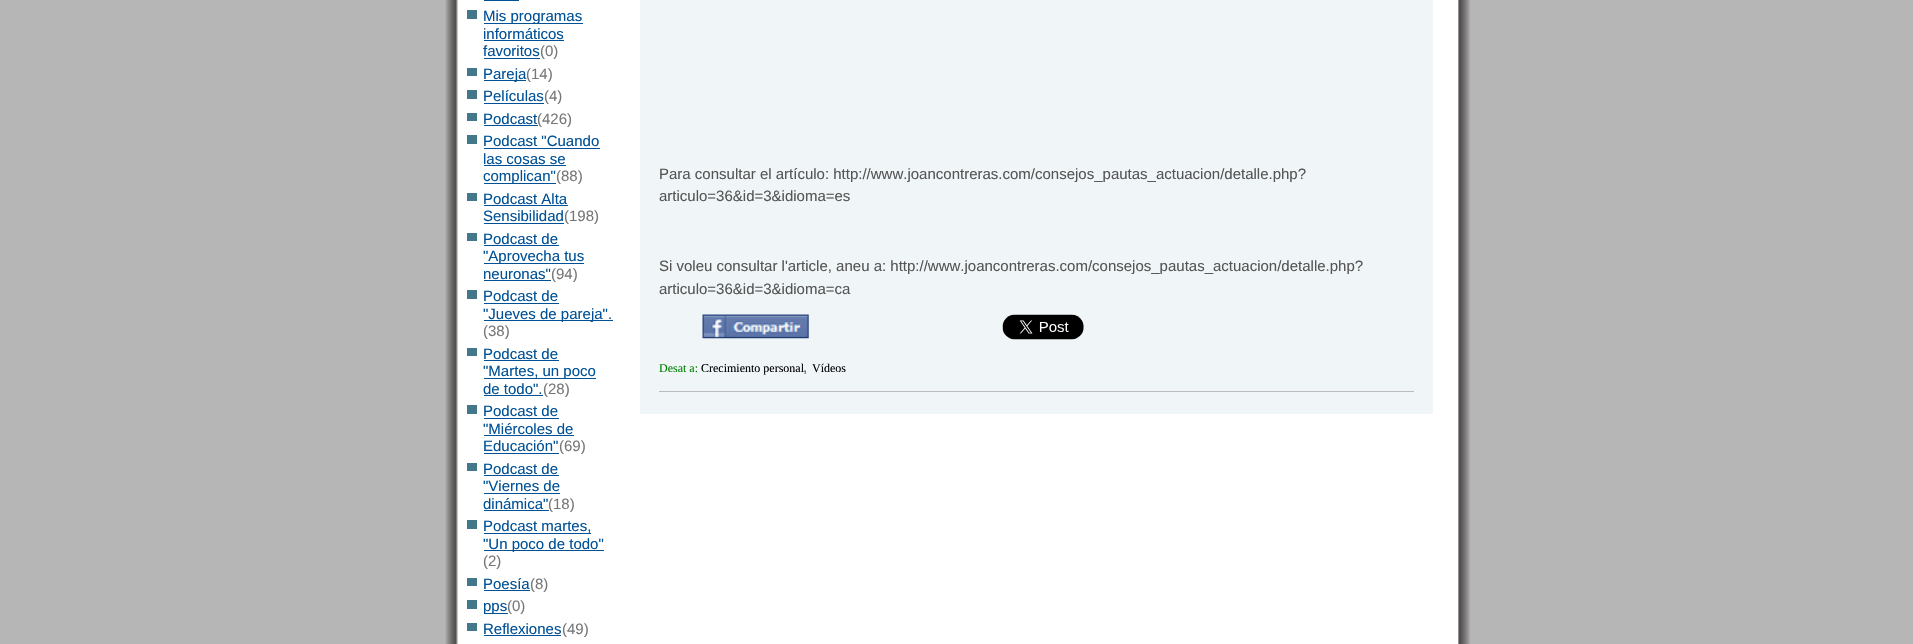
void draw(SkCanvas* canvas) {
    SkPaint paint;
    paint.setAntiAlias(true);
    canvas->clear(0xFFB7B6B6);
    canvas->drawImageRect(SkImages::DeferredFromEncodedData(SkData::MakeFromFileName("img1.png")), SkRect::MakeXYWH(445, 0, 1025, 644), SkSamplingOptions());
    paint.setColor(0xFFFFFFFF);
    canvas->drawRect(SkRect::MakeXYWH(1457, 0, 1, 644), paint);
    paint.setColor(0xFF005196);
    canvas->drawRect(SkRect::MakeXYWH(484, 0, 35, 1), paint);
    paint.setColor(0xFF43778A);
    canvas->drawRect(SkRect::MakeXYWH(467, 10, 10, 9), paint);
    paint.setColor(0xFF005196);
    canvas->drawRect(SkRect::MakeXYWH(484, 23, 99, 1), paint);
    SkFont font1(fontMgr->matchFamilyStyle("Liberation Sans", SkFontStyle::Normal()), 15);
    font1.setSubpixel(true);
    canvas->drawString("Mis programas", 483, 21, font1, paint);
    canvas->drawString("informáticos", 483, 39, font1, paint);
    canvas->drawRect(SkRect::MakeXYWH(484, 40, 80, 1), paint);
    canvas->drawString("favoritos", 483, 56, font1, paint);
    canvas->drawRect(SkRect::MakeXYWH(484, 58, 56, 1), paint);
    paint.setColor(0xFF777777);
    canvas->drawString("(0)", 540, 56, font1, paint);
    paint.setColor(0xFF43778A);
    canvas->drawRect(SkRect::MakeXYWH(467, 68, 10, 8), paint);
    paint.setColor(0xFF005196);
    canvas->drawRect(SkRect::MakeXYWH(484, 80, 42, 1), paint);
    canvas->drawString("Pareja", 483, 79, font1, paint);
    paint.setColor(0xFF777777);
    canvas->drawString("(14)", 526, 79, font1, paint);
    paint.setColor(0xFF43778A);
    canvas->drawRect(SkRect::MakeXYWH(467, 90, 10, 9), paint);
    paint.setColor(0xFF005196);
    canvas->drawString("Películas", 483, 101, font1, paint);
    canvas->drawRect(SkRect::MakeXYWH(484, 103, 60, 1), paint);
    paint.setColor(0xFF777777);
    canvas->drawString("(4)", 544, 101, font1, paint);
    paint.setColor(0xFF43778A);
    canvas->drawRect(SkRect::MakeXYWH(467, 113, 10, 8), paint);
    paint.setColor(0xFF005196);
    canvas->drawString("Podcast", 483, 124, font1, paint);
    canvas->drawRect(SkRect::MakeXYWH(484, 125, 54, 1), paint);
    paint.setColor(0xFF777777);
    canvas->drawString("(426)", 537, 124, font1, paint);
    paint.setColor(0xFF43778A);
    canvas->drawRect(SkRect::MakeXYWH(467, 135, 10, 9), paint);
    paint.setColor(0xFF005196);
    canvas->drawString("Podcast \"Cuando", 483, 146, font1, paint);
    canvas->drawRect(SkRect::MakeXYWH(484, 148, 116, 1), paint);
    canvas->drawString("las cosas se", 483, 164, font1, paint);
    canvas->drawRect(SkRect::MakeXYWH(484, 165, 82, 1), paint);
    canvas->drawRect(SkRect::MakeXYWH(484, 183, 72, 1), paint);
    canvas->drawString("complican\"", 483, 181, font1, paint);
    paint.setColor(0xFF777777);
    canvas->drawString("(88)", 556, 181, font1, paint);
    paint.setColor(0xFF43778A);
    canvas->drawRect(SkRect::MakeXYWH(467, 193, 10, 8), paint);
    paint.setColor(0xFF005196);
    canvas->drawString("Podcast Alta", 483, 204, font1, paint);
    canvas->drawRect(SkRect::MakeXYWH(484, 205, 84, 1), paint);
    canvas->drawString("Sensibilidad", 483, 221, font1, paint);
    canvas->drawRect(SkRect::MakeXYWH(484, 223, 80, 1), paint);
    paint.setColor(0xFF777777);
    canvas->drawString("(198)", 564, 221, font1, paint);
    paint.setColor(0xFF43778A);
    canvas->drawRect(SkRect::MakeXYWH(467, 233, 10, 8), paint);
    paint.setColor(0xFF005196);
    canvas->drawString("Podcast de", 483, 244, font1, paint);
    canvas->drawRect(SkRect::MakeXYWH(484, 245, 75, 1), paint);
    canvas->drawRect(SkRect::MakeXYWH(484, 263, 100, 1), paint);
    canvas->drawString("\"Aprovecha tus", 483, 261, font1, paint);
    canvas->drawString("neuronas\"", 483, 279, font1, paint);
    canvas->drawRect(SkRect::MakeXYWH(484, 280, 67, 1), paint);
    paint.setColor(0xFF777777);
    canvas->drawString("(94)", 551, 279, font1, paint);
    paint.setColor(0xFF43778A);
    canvas->drawRect(SkRect::MakeXYWH(467, 290, 10, 9), paint);
    paint.setColor(0xFF005196);
    canvas->drawString("Podcast de", 483, 301, font1, paint);
    canvas->drawRect(SkRect::MakeXYWH(484, 303, 75, 1), paint);
    canvas->drawRect(SkRect::MakeXYWH(484, 320, 129, 1), paint);
    canvas->drawString("\"Jueves de pareja\".", 483, 319, font1, paint);
    paint.setColor(0xFF777777);
    canvas->drawString("(38)", 483, 336, font1, paint);
    paint.setColor(0xFF43778A);
    canvas->drawRect(SkRect::MakeXYWH(467, 348, 10, 8), paint);
    paint.setColor(0xFF005196);
    canvas->drawString("Podcast de", 483, 359, font1, paint);
    canvas->drawRect(SkRect::MakeXYWH(484, 360, 75, 1), paint);
    canvas->drawRect(SkRect::MakeXYWH(484, 378, 112, 1), paint);
    canvas->drawString("\"Martes, un poco", 483, 376, font1, paint);
    canvas->drawString("de todo\".", 483, 394, font1, paint);
    canvas->drawRect(SkRect::MakeXYWH(484, 395, 59, 1), paint);
    paint.setColor(0xFF777777);
    canvas->drawString("(28)", 543, 394, font1, paint);
    paint.setColor(0xFF43778A);
    canvas->drawRect(SkRect::MakeXYWH(467, 405, 10, 9), paint);
    paint.setColor(0xFF005196);
    canvas->drawString("Podcast de", 483, 416, font1, paint);
    canvas->drawRect(SkRect::MakeXYWH(484, 418, 75, 1), paint);
    canvas->drawString("\"Miércoles de", 483, 434, font1, paint);
    canvas->drawRect(SkRect::MakeXYWH(484, 435, 90, 1), paint);
    canvas->drawString("Educación\"", 483, 451, font1, paint);
    canvas->drawRect(SkRect::MakeXYWH(484, 453, 75, 1), paint);
    paint.setColor(0xFF777777);
    canvas->drawString("(69)", 559, 451, font1, paint);
    paint.setColor(0xFF43778A);
    canvas->drawRect(SkRect::MakeXYWH(467, 463, 10, 8), paint);
    paint.setColor(0xFF005196);
    canvas->drawString("Podcast de", 483, 474, font1, paint);
    canvas->drawRect(SkRect::MakeXYWH(484, 475, 75, 1), paint);
    canvas->drawString("\"Viernes de", 483, 491, font1, paint);
    canvas->drawRect(SkRect::MakeXYWH(484, 493, 76, 1), paint);
    canvas->drawString("dinámica\"", 483, 509, font1, paint);
    canvas->drawRect(SkRect::MakeXYWH(484, 510, 65, 1), paint);
    paint.setColor(0xFF777777);
    canvas->drawString("(18)", 548, 509, font1, paint);
    paint.setColor(0xFF43778A);
    canvas->drawRect(SkRect::MakeXYWH(467, 520, 10, 9), paint);
    paint.setColor(0xFF005196);
    canvas->drawString("Podcast martes,", 483, 531, font1, paint);
    canvas->drawRect(SkRect::MakeXYWH(484, 533, 107, 1), paint);
    canvas->drawRect(SkRect::MakeXYWH(484, 550, 120, 1), paint);
    canvas->drawString("\"Un poco de todo\"", 483, 549, font1, paint);
    paint.setColor(0xFF777777);
    canvas->drawString("(2)", 483, 566, font1, paint);
    paint.setColor(0xFF43778A);
    canvas->drawRect(SkRect::MakeXYWH(467, 578, 10, 8), paint);
    paint.setColor(0xFF005196);
    canvas->drawString("Poesía", 483, 589, font1, paint);
    canvas->drawRect(SkRect::MakeXYWH(484, 590, 46, 1), paint);
    paint.setColor(0xFF777777);
    canvas->drawString("(8)", 530, 589, font1, paint);
    paint.setColor(0xFF43778A);
    canvas->drawRect(SkRect::MakeXYWH(467, 600, 10, 9), paint);
    paint.setColor(0xFF005196);
    canvas->drawRect(SkRect::MakeXYWH(484, 613, 24, 1), paint);
    canvas->drawString("pps", 483, 611, font1, paint);
    paint.setColor(0xFF777777);
    canvas->drawString("(0)", 507, 611, font1, paint);
    paint.setColor(0xFF43778A);
    canvas->drawRect(SkRect::MakeXYWH(467, 623, 10, 8), paint);
    paint.setColor(0xFF005196);
    canvas->drawString("Reflexiones", 483, 634, font1, paint);
    canvas->drawRect(SkRect::MakeXYWH(484, 635, 77, 1), paint);
    paint.setColor(0xFF777777);
    canvas->drawString("(49)", 562, 634, font1, paint);
    paint.setColor(0xFFF0F6F8);
    canvas->drawRect(SkRect::MakeXYWH(640, 0, 793, 414), paint);
    paint.setColor(0xFF555555);
    canvas->drawString("Para consultar el artículo: http://www.joancontreras.com/consejos_pautas_actuacion/detalle.php?", 659, 179, font1, paint);
    canvas->drawString("articulo=36&id=3&idioma=es", 659, 201, font1, paint);
    canvas->drawString("Si voleu consultar l'article, aneu a: http://www.joancontreras.com/consejos_pautas_actuacion/detalle.php?", 659, 271, font1, paint);
    canvas->drawString("articulo=36&id=3&idioma=ca", 659, 294, font1, paint);
    canvas->drawImageRect(SkImages::DeferredFromEncodedData(SkData::MakeFromFileName("img2.png")), SkRect::MakeXYWH(702, 314, 107, 25), SkSamplingOptions());
    canvas->drawImageRect(SkImages::DeferredFromEncodedData(SkData::MakeFromFileName("img3.png")), SkRect::MakeXYWH(1002, 314, 82, 26), SkSamplingOptions());
    SkFont font2(fontMgr->matchFamilyStyle("Liberation Serif", SkFontStyle::Normal()), 12);
    font2.setSubpixel(true);
    paint.setColor(0xFF008000);
    canvas->drawString("Desat a:", 659, 372, font2, paint);
    paint.setColor(0xFF000000);
    canvas->drawString("Crecimiento personal", 701, 372, font2, paint);
    paint.setColor(0xFF555555);
    canvas->drawString(",", 803, 372, font1, paint);
    paint.setColor(0xFF000000);
    canvas->drawString("Vídeos", 812, 372, font2, paint);
    paint.setColor(0xFFBBBBBB);
    canvas->drawRect(SkRect::MakeXYWH(659, 391, 755, 1), paint);
}
